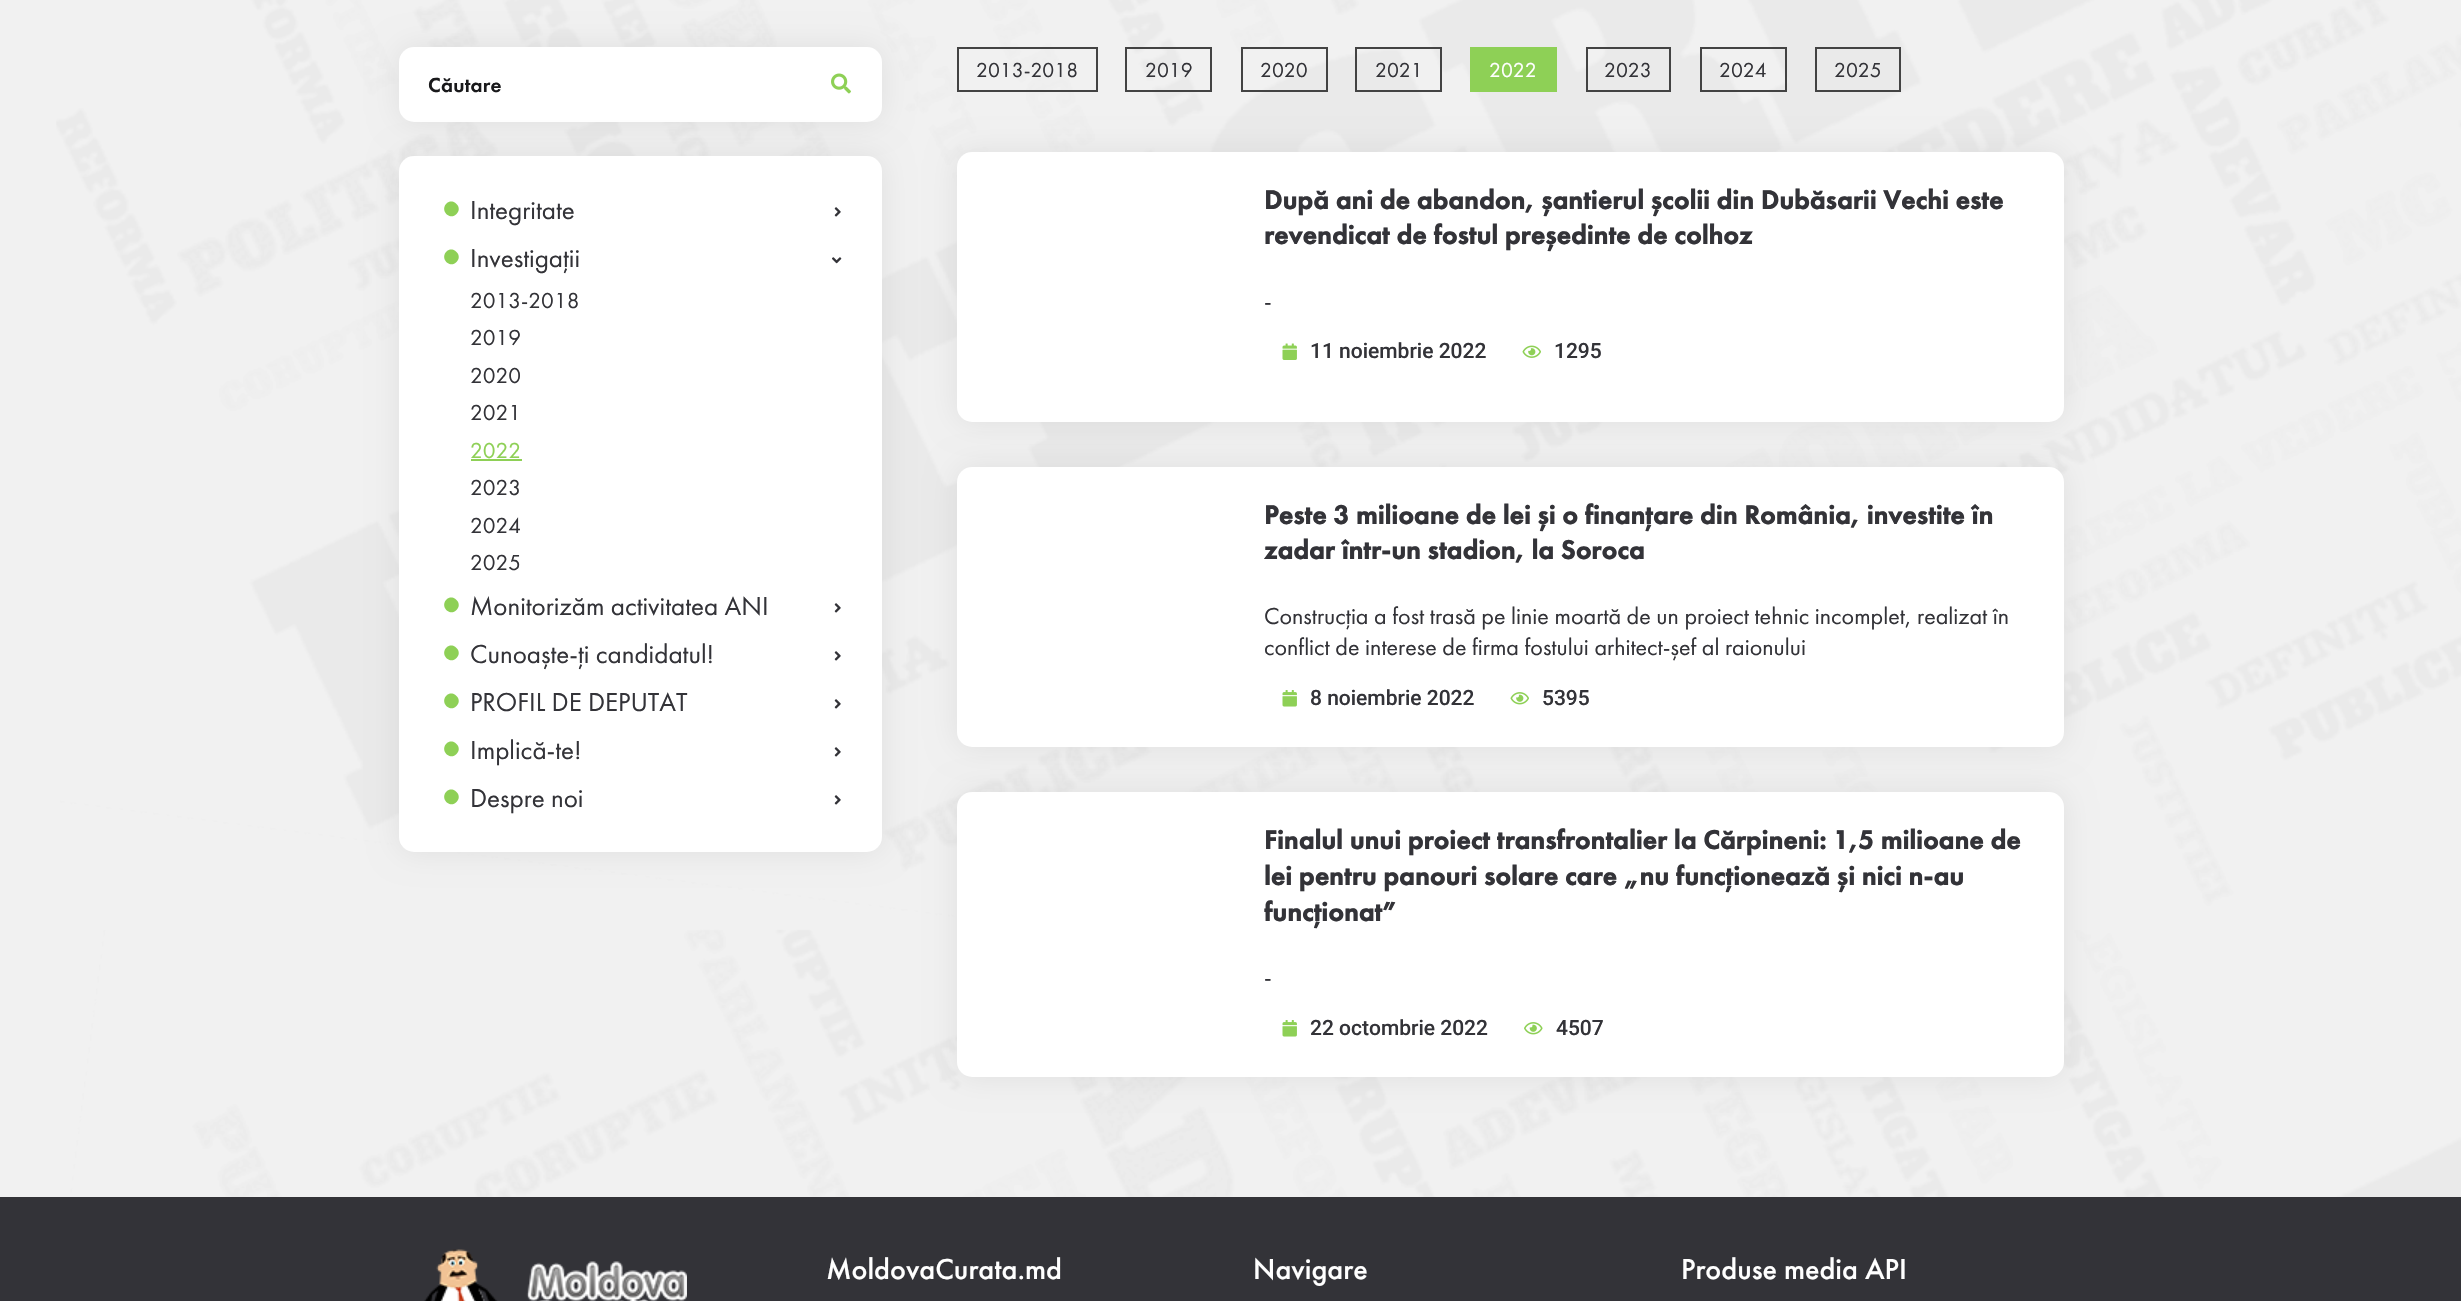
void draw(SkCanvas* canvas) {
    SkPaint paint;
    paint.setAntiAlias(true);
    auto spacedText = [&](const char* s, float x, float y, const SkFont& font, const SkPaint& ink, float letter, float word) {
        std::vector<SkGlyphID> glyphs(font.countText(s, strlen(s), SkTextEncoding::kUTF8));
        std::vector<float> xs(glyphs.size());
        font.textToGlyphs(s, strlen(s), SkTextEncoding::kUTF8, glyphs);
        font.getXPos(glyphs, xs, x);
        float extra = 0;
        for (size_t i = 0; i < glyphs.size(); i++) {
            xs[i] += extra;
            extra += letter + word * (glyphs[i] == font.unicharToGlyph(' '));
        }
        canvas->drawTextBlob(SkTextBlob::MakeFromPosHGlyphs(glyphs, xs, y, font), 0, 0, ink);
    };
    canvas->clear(0xFFF1F1F1);
    canvas->drawImageRect(SkImages::DeferredFromEncodedData(SkData::MakeFromFileName("img1.png")), SkRect::MakeXYWH(56, 0, 2405, 1197), SkSamplingOptions());
    paint.setColor(0x12000000);
    paint.setMaskFilter(SkMaskFilter::MakeBlur(kNormal_SkBlurStyle, 15));
    canvas->drawRoundRect(SkRect::MakeXYWH(399, 47, 483, 75), 15, 15, paint);
    paint.setMaskFilter(nullptr);
    paint.setColor(0xFFFFFFFF);
    canvas->drawRoundRect(SkRect::MakeXYWH(399, 47, 483, 75), 15, 15, paint);
    SkFont font1(fontMgr->matchFamilyStyle("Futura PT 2", SkFontStyle(500, SkFontStyle::kNormal_Width, SkFontStyle::kUpright_Slant)), 21);
    font1.setSubpixel(true);
    paint.setColor(0xFF19191B);
    spacedText("Căutare", 428, 92, font1, paint, 0.25f, 0);
    canvas->drawImageRect(SkImages::DeferredFromEncodedData(SkData::MakeFromFileName("img2.png")), SkRect::MakeXYWH(831, 73, 20, 21), SkSamplingOptions());
    paint.setColor(0x12000000);
    paint.setMaskFilter(SkMaskFilter::MakeBlur(kNormal_SkBlurStyle, 15));
    canvas->drawRoundRect(SkRect::MakeXYWH(399, 156, 483, 696), 15, 15, paint);
    paint.setMaskFilter(nullptr);
    paint.setColor(0xFFFFFFFF);
    canvas->drawRoundRect(SkRect::MakeXYWH(399, 156, 483, 696), 15, 15, paint);
    paint.setColor(0xFF8ED056);
    canvas->drawPath(SkPathBuilder().moveTo(446.5f, 203.5f).cubicTo(453, 197, 463.5f, 207.5f, 456.5f, 214).cubicTo(450, 221, 439.5f, 210.5f, 446.5f, 203.5f).close().detach(), paint);
    SkFont font2(fontMgr->matchFamilyStyle("Futura PT", SkFontStyle::Normal()), 27);
    font2.setSubpixel(true);
    paint.setColor(0xFF333338);
    canvas->drawString("Integritate", 470, 219, font2, paint);
    canvas->drawImageRect(SkImages::DeferredFromEncodedData(SkData::MakeFromFileName("img3.png")), SkRect::MakeXYWH(834, 207, 7, 10), SkSamplingOptions());
    paint.setColor(0xFF8ED056);
    canvas->drawPath(SkPathBuilder().moveTo(446.5f, 251.5f).cubicTo(453, 245, 463.5f, 255.5f, 456.5f, 262).cubicTo(450, 269, 439.5f, 258.5f, 446.5f, 251.5f).close().detach(), paint);
    paint.setColor(0xFF333338);
    canvas->drawString("Investigații", 470, 267, font2, paint);
    canvas->drawImageRect(SkImages::DeferredFromEncodedData(SkData::MakeFromFileName("img4.png")), SkRect::MakeXYWH(832, 257, 10, 7), SkSamplingOptions());
    SkFont font3(fontMgr->matchFamilyStyle("Futura PT", SkFontStyle::Normal()), 22.5f);
    font3.setSubpixel(true);
    canvas->drawString("2013-2018", 470, 308, font3, paint);
    canvas->drawString("2019", 470, 345, font3, paint);
    canvas->drawString("2020", 470, 383, font3, paint);
    canvas->drawString("2021", 470, 420, font3, paint);
    paint.setColor(0xFF8ED056);
    canvas->drawString("2022", 470, 458, font3, paint);
    canvas->drawRect(SkRect::MakeXYWH(471, 459, 51, 2), paint);
    paint.setColor(0xFF333338);
    canvas->drawString("2023", 470, 495, font3, paint);
    canvas->drawString("2024", 470, 533, font3, paint);
    canvas->drawString("2025", 470, 570, font3, paint);
    paint.setColor(0xFF8ED056);
    canvas->drawPath(SkPathBuilder().moveTo(446.5f, 599.5f).cubicTo(453, 593, 463.5f, 603.5f, 456.5f, 610).cubicTo(450, 617, 439.5f, 606.5f, 446.5f, 599.5f).close().detach(), paint);
    paint.setColor(0xFF333338);
    canvas->drawString("Monitorizăm activitatea ANI", 470, 615, font2, paint);
    canvas->drawImageRect(SkImages::DeferredFromEncodedData(SkData::MakeFromFileName("img3.png")), SkRect::MakeXYWH(834, 603, 7, 10), SkSamplingOptions());
    paint.setColor(0xFF8ED056);
    canvas->drawPath(SkPathBuilder().moveTo(446.5f, 647.5f).cubicTo(453, 641, 463.5f, 651.5f, 456.5f, 658).cubicTo(450, 665, 439.5f, 654.5f, 446.5f, 647.5f).close().detach(), paint);
    paint.setColor(0xFF333338);
    canvas->drawString("Cunoaște-ți candidatul!", 470, 663, font2, paint);
    canvas->drawImageRect(SkImages::DeferredFromEncodedData(SkData::MakeFromFileName("img3.png")), SkRect::MakeXYWH(834, 651, 7, 10), SkSamplingOptions());
    paint.setColor(0xFF8ED056);
    canvas->drawPath(SkPathBuilder().moveTo(446.5f, 695.5f).cubicTo(453, 689, 463.5f, 699.5f, 456.5f, 706).cubicTo(450, 713, 439.5f, 702.5f, 446.5f, 695.5f).close().detach(), paint);
    paint.setColor(0xFF333338);
    canvas->drawString("PROFIL DE DEPUTAT", 470, 711, font2, paint);
    canvas->drawImageRect(SkImages::DeferredFromEncodedData(SkData::MakeFromFileName("img3.png")), SkRect::MakeXYWH(834, 699, 7, 10), SkSamplingOptions());
    paint.setColor(0xFF8ED056);
    canvas->drawPath(SkPathBuilder().moveTo(446.5f, 743.5f).cubicTo(453, 737, 463.5f, 747.5f, 456.5f, 754).cubicTo(450, 761, 439.5f, 750.5f, 446.5f, 743.5f).close().detach(), paint);
    paint.setColor(0xFF333338);
    canvas->drawString("Implică-te!", 470, 759, font2, paint);
    canvas->drawImageRect(SkImages::DeferredFromEncodedData(SkData::MakeFromFileName("img3.png")), SkRect::MakeXYWH(834, 747, 7, 10), SkSamplingOptions());
    paint.setColor(0xFF8ED056);
    canvas->drawPath(SkPathBuilder().moveTo(446.5f, 791.5f).cubicTo(453, 785, 463.5f, 795.5f, 456.5f, 802).cubicTo(450, 809, 439.5f, 798.5f, 446.5f, 791.5f).close().detach(), paint);
    paint.setColor(0xFF333338);
    canvas->drawString("Despre noi", 470, 807, font2, paint);
    canvas->drawImageRect(SkImages::DeferredFromEncodedData(SkData::MakeFromFileName("img3.png")), SkRect::MakeXYWH(834, 795, 7, 10), SkSamplingOptions());
    paint.setStyle(SkPaint::kStroke_Style);
    paint.setStrokeWidth(2);
    paint.setColor(0xFF434343);
    canvas->drawRect(SkRect::MakeXYWH(958, 48, 139, 43), paint);
    SkFont font4(fontMgr->matchFamilyStyle("Futura PT", SkFontStyle::Normal()), 21);
    font4.setSubpixel(true);
    paint.setStyle(SkPaint::kFill_Style);
    paint.setColor(0xFF333338);
    canvas->drawString("2013-2018", 976, 77, font4, paint);
    paint.setStyle(SkPaint::kStroke_Style);
    paint.setColor(0xFF434343);
    canvas->drawRect(SkRect::MakeXYWH(1126, 48, 85, 43), paint);
    paint.setStyle(SkPaint::kFill_Style);
    paint.setColor(0xFF333338);
    canvas->drawString("2019", 1145, 77, font4, paint);
    paint.setStyle(SkPaint::kStroke_Style);
    paint.setColor(0xFF434343);
    canvas->drawRect(SkRect::MakeXYWH(1242, 48, 85, 43), paint);
    paint.setStyle(SkPaint::kFill_Style);
    paint.setColor(0xFF333338);
    canvas->drawString("2020", 1260, 77, font4, paint);
    paint.setStyle(SkPaint::kStroke_Style);
    paint.setColor(0xFF434343);
    canvas->drawRect(SkRect::MakeXYWH(1356, 48, 85, 43), paint);
    paint.setStyle(SkPaint::kFill_Style);
    paint.setColor(0xFF333338);
    canvas->drawString("2021", 1375, 77, font4, paint);
    paint.setColor(0xFF8ED056);
    canvas->drawRect(SkRect::MakeXYWH(1470, 47, 87, 45), paint);
    paint.setColor(0xFFFFFFFF);
    canvas->drawString("2022", 1489, 77, font4, paint);
    paint.setStyle(SkPaint::kStroke_Style);
    paint.setColor(0xFF434343);
    canvas->drawRect(SkRect::MakeXYWH(1587, 48, 83, 43), paint);
    paint.setStyle(SkPaint::kFill_Style);
    paint.setColor(0xFF333338);
    canvas->drawString("2023", 1604, 77, font4, paint);
    paint.setStyle(SkPaint::kStroke_Style);
    paint.setColor(0xFF434343);
    canvas->drawRect(SkRect::MakeXYWH(1701, 48, 85, 43), paint);
    paint.setStyle(SkPaint::kFill_Style);
    paint.setColor(0xFF333338);
    canvas->drawString("2024", 1719, 77, font4, paint);
    paint.setStyle(SkPaint::kStroke_Style);
    paint.setColor(0xFF434343);
    canvas->drawRect(SkRect::MakeXYWH(1816, 48, 84, 43), paint);
    paint.setStyle(SkPaint::kFill_Style);
    paint.setColor(0xFF333338);
    canvas->drawString("2025", 1834, 77, font4, paint);
    paint.setColor(0x12000000);
    paint.setMaskFilter(SkMaskFilter::MakeBlur(kNormal_SkBlurStyle, 15));
    canvas->drawRoundRect(SkRect::MakeXYWH(957, 152, 1107, 270), 15, 15, paint);
    paint.setMaskFilter(nullptr);
    paint.setColor(0xFFFFFFFF);
    canvas->drawRoundRect(SkRect::MakeXYWH(957, 152, 1107, 270), 15, 15, paint);
    SkFont font5(fontMgr->matchFamilyStyle("Futura PT", SkFontStyle::Bold()), 27);
    font5.setSubpixel(true);
    paint.setColor(0xFF333338);
    spacedText("După ani de abandon, șantierul școlii din Dubăsarii Vechi este", 1264, 209, font5, paint, 0.4f, 0);
    spacedText("revendicat de fostul președinte de colhoz", 1264, 244, font5, paint, 0.4f, 0);
    SkFont font6(fontMgr->matchFamilyStyle("Futura PT", SkFontStyle::Normal()), 24);
    font6.setSubpixel(true);
    canvas->drawString("-", 1264, 309, font6, paint);
    canvas->drawImageRect(SkImages::DeferredFromEncodedData(SkData::MakeFromFileName("img5.png")), SkRect::MakeXYWH(1282, 343, 15, 17), SkSamplingOptions());
    SkFont font7(fontMgr->matchFamilyStyle("Roboto", SkFontStyle(500, SkFontStyle::kNormal_Width, SkFontStyle::kUpright_Slant)), 21);
    font7.setSubpixel(true);
    canvas->drawString("11 noiembrie 2022", 1310, 358, font7, paint);
    canvas->drawImageRect(SkImages::DeferredFromEncodedData(SkData::MakeFromFileName("img6.png")), SkRect::MakeXYWH(1522, 345, 19, 13), SkSamplingOptions());
    canvas->drawString("1295", 1554, 358, font7, paint);
    paint.setColor(0x12000000);
    paint.setMaskFilter(SkMaskFilter::MakeBlur(kNormal_SkBlurStyle, 15));
    canvas->drawRoundRect(SkRect::MakeXYWH(957, 467, 1107, 280), 15, 15, paint);
    paint.setMaskFilter(nullptr);
    paint.setColor(0xFFFFFFFF);
    canvas->drawRoundRect(SkRect::MakeXYWH(957, 467, 1107, 280), 15, 15, paint);
    paint.setColor(0xFF333338);
    spacedText("Peste 3 milioane de lei și o finanțare din România, investite în", 1264, 524, font5, paint, 0.4f, 0);
    spacedText("zadar într-un stadion, la Soroca", 1264, 559, font5, paint, 0.4f, 0);
    canvas->drawString("Construcția a fost trasă pe linie moartă de un proiect tehnic incomplet, realizat în", 1264, 624, font6, paint);
    canvas->drawString("conflict de interese de firma fostului arhitect-șef al raionului", 1264, 655, font6, paint);
    canvas->drawImageRect(SkImages::DeferredFromEncodedData(SkData::MakeFromFileName("img7.png")), SkRect::MakeXYWH(1282, 690, 15, 17), SkSamplingOptions());
    canvas->drawString("8 noiembrie 2022", 1310, 705, font7, paint);
    canvas->drawImageRect(SkImages::DeferredFromEncodedData(SkData::MakeFromFileName("img8.png")), SkRect::MakeXYWH(1510, 692, 19, 13), SkSamplingOptions());
    canvas->drawString("5395", 1542, 705, font7, paint);
    paint.setColor(0x12000000);
    paint.setMaskFilter(SkMaskFilter::MakeBlur(kNormal_SkBlurStyle, 15));
    canvas->drawRoundRect(SkRect::MakeXYWH(957, 792, 1107, 285), 15, 15, paint);
    paint.setMaskFilter(nullptr);
    paint.setColor(0xFFFFFFFF);
    canvas->drawRoundRect(SkRect::MakeXYWH(957, 792, 1107, 285), 15, 15, paint);
    paint.setColor(0xFF333338);
    spacedText("Finalul unui proiect transfrontalier la Cărpineni: 1,5 milioane de", 1264, 849, font5, paint, 0.4f, 0);
    spacedText("lei pentru panouri solare care „nu funcționează și nici n-au", 1264, 885, font5, paint, 0.4f, 0);
    spacedText("funcționat”", 1264, 921, font5, paint, 0.4f, 0);
    canvas->drawString("-", 1264, 985, font6, paint);
    canvas->drawImageRect(SkImages::DeferredFromEncodedData(SkData::MakeFromFileName("img7.png")), SkRect::MakeXYWH(1282, 1020, 15, 17), SkSamplingOptions());
    canvas->drawString("22 octombrie 2022", 1310, 1035, font7, paint);
    canvas->drawImageRect(SkImages::DeferredFromEncodedData(SkData::MakeFromFileName("img9.png")), SkRect::MakeXYWH(1524, 1022, 19, 13), SkSamplingOptions());
    canvas->drawString("4507", 1556, 1035, font7, paint);
    canvas->drawRect(SkRect::MakeXYWH(0, 1197, 2461, 104), paint);
    canvas->drawImageRect(SkImages::DeferredFromEncodedData(SkData::MakeFromFileName("img10.png")), SkRect::MakeXYWH(424, 1249, 263, 52), SkSamplingOptions());
    SkFont font8(fontMgr->matchFamilyStyle("Futura PT", SkFontStyle(500, SkFontStyle::kNormal_Width, SkFontStyle::kUpright_Slant)), 30);
    font8.setSubpixel(true);
    paint.setColor(0xFFFFFFFF);
    canvas->drawString("MoldovaCurata.md", 826, 1279, font8, paint);
    canvas->drawString("Navigare", 1253, 1279, font8, paint);
    canvas->drawString("Produse media API", 1681, 1279, font8, paint);
}
